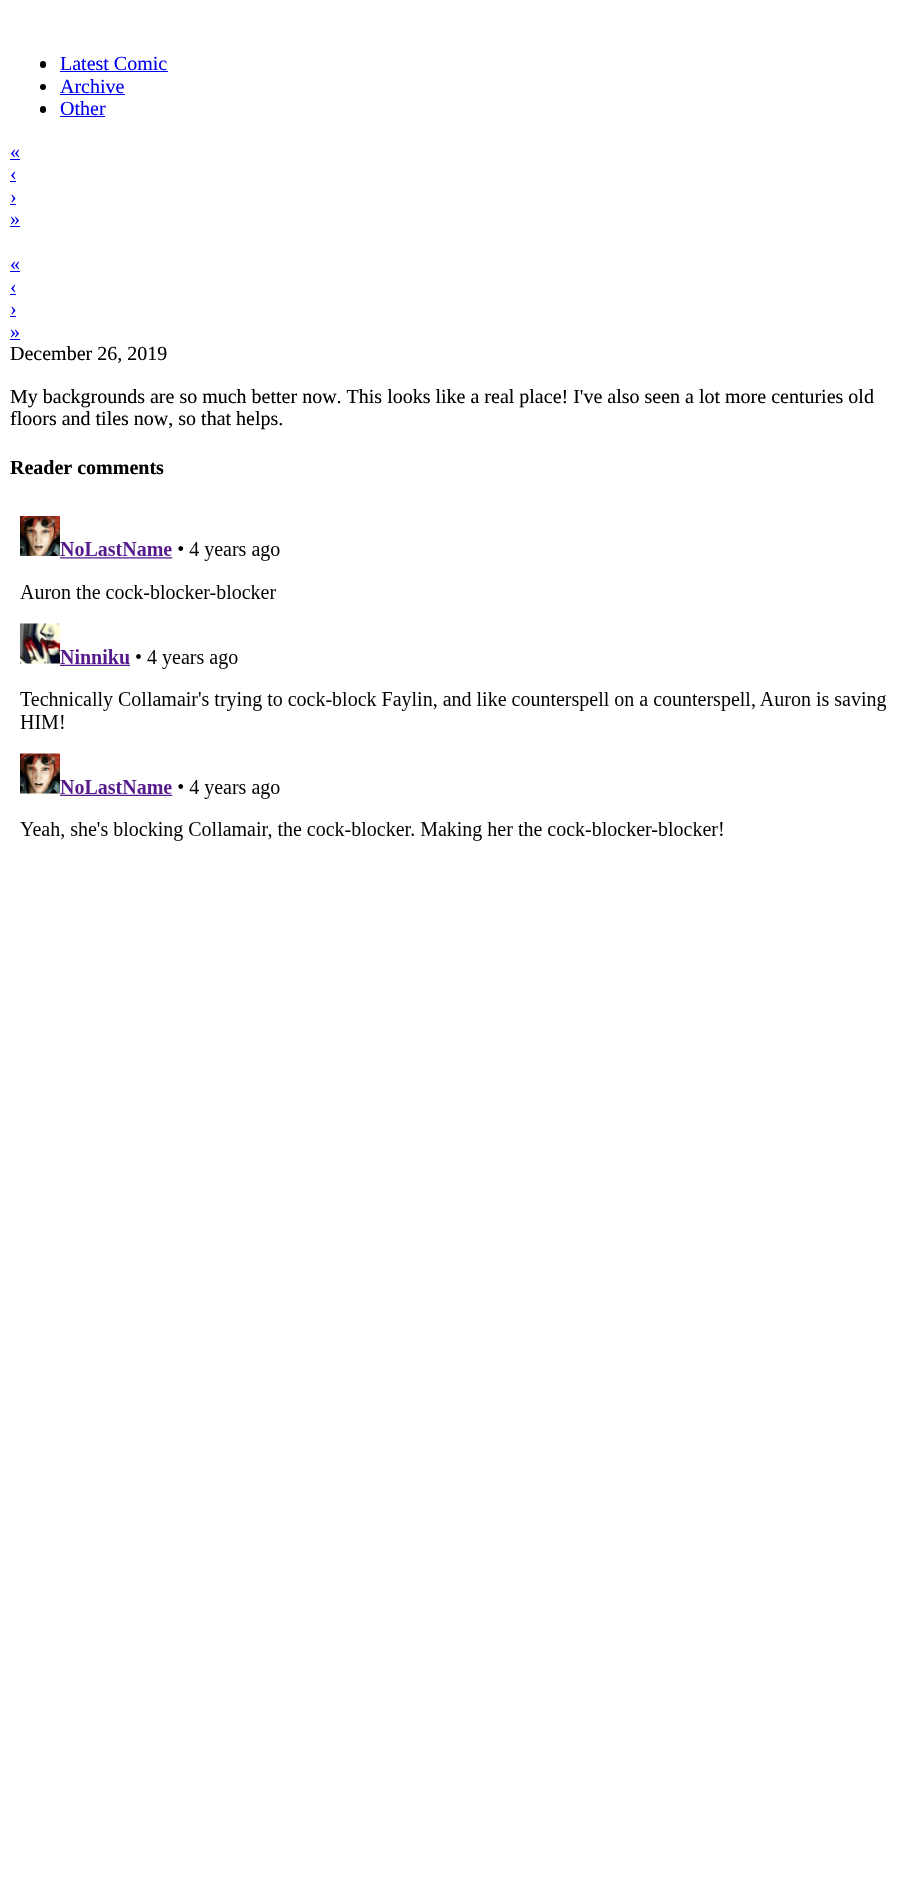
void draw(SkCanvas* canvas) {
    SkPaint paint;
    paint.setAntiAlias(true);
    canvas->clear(0xFFFFFFFF);
    paint.setColor(0xFF000000);
    canvas->drawRoundRect(SkRect::MakeXYWH(40, 61, 6, 7), 3, 3, paint);
    SkFont font1(fontMgr->matchFamilyStyle("Liberation Serif", SkFontStyle::Normal()), 20);
    font1.setSubpixel(true);
    paint.setColor(0xFF0000EE);
    canvas->drawString("Latest Comic", 60, 70, font1, paint);
    canvas->drawRect(SkRect::MakeXYWH(60, 71, 108, 1), paint);
    paint.setColor(0xFF000000);
    canvas->drawCircle(43, 87, 3, paint);
    paint.setColor(0xFF0000EE);
    canvas->drawString("Archive", 60, 93, font1, paint);
    canvas->drawRect(SkRect::MakeXYWH(60, 94, 65, 1), paint);
    paint.setColor(0xFF000000);
    canvas->drawRoundRect(SkRect::MakeXYWH(40, 106, 6, 7), 3, 3, paint);
    paint.setColor(0xFF0000EE);
    canvas->drawString("Other", 60, 115, font1, paint);
    canvas->drawRect(SkRect::MakeXYWH(60, 116, 45, 1), paint);
    canvas->drawString("«", 10, 158, font1, paint);
    canvas->drawRect(SkRect::MakeXYWH(10, 159, 10, 1), paint);
    canvas->drawString("‹", 10, 180, font1, paint);
    canvas->drawRect(SkRect::MakeXYWH(10, 181, 6, 1), paint);
    canvas->drawString("›", 10, 203, font1, paint);
    canvas->drawRect(SkRect::MakeXYWH(10, 204, 6, 1), paint);
    canvas->drawString("»", 10, 225, font1, paint);
    canvas->drawRect(SkRect::MakeXYWH(10, 226, 10, 1), paint);
    canvas->drawString("«", 10, 270, font1, paint);
    canvas->drawRect(SkRect::MakeXYWH(10, 271, 10, 1), paint);
    canvas->drawString("‹", 10, 293, font1, paint);
    canvas->drawRect(SkRect::MakeXYWH(10, 294, 6, 1), paint);
    canvas->drawString("›", 10, 315, font1, paint);
    canvas->drawRect(SkRect::MakeXYWH(10, 316, 6, 1), paint);
    canvas->drawString("»", 10, 338, font1, paint);
    canvas->drawRect(SkRect::MakeXYWH(10, 339, 10, 1), paint);
    paint.setColor(0xFF000000);
    canvas->drawString("December 26, 2019", 10, 360, font1, paint);
    canvas->drawString("My backgrounds are so much better now. This looks like a real place! I've also seen a lot more centuries old", 10, 403, font1, paint);
    canvas->drawString("floors and tiles now, so that helps.", 10, 425, font1, paint);
    SkFont font2(fontMgr->matchFamilyStyle("Liberation Serif", SkFontStyle::Bold()), 20);
    font2.setSubpixel(true);
    canvas->drawString("Reader comments", 10, 474, font2, paint);
    canvas->drawImageRect(SkImages::DeferredFromEncodedData(SkData::MakeFromFileName("img1.png")), SkRect::MakeXYWH(20, 516, 867, 325), SkSamplingOptions());
}
